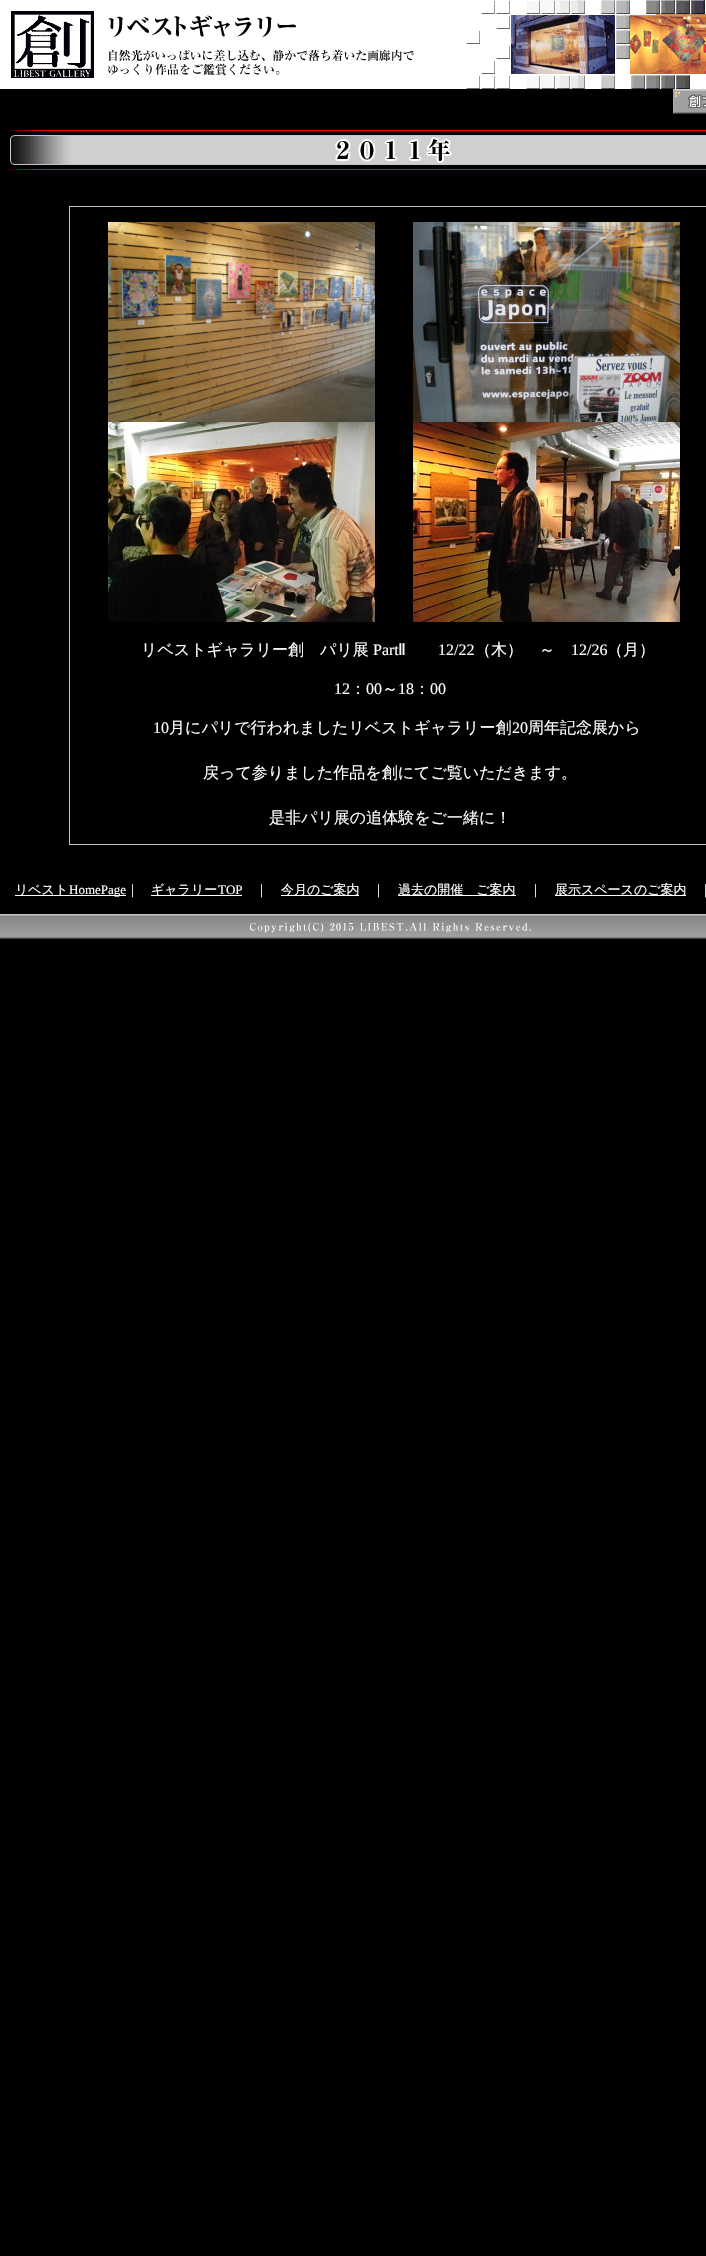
void draw(SkCanvas* canvas) {
    SkPaint paint;
    paint.setAntiAlias(true);
    canvas->clear(0xFF000000);
    paint.setColor(0xFFFFFFFF);
    canvas->drawRect(SkRect::MakeXYWH(0, 0, 466, 89), paint);
    canvas->drawImageRect(SkImages::DeferredFromEncodedData(SkData::MakeFromFileName("img1.png")), SkRect::MakeXYWH(11, 11, 83, 67), SkSamplingOptions());
    canvas->drawImageRect(SkImages::DeferredFromEncodedData(SkData::MakeFromFileName("img2.png")), SkRect::MakeXYWH(108, 15, 306, 61), SkSamplingOptions());
    canvas->drawImageRect(SkImages::DeferredFromEncodedData(SkData::MakeFromFileName("img3.png")), SkRect::MakeXYWH(466, 0, 240, 89), SkSamplingOptions());
    canvas->drawImageRect(SkImages::DeferredFromEncodedData(SkData::MakeFromFileName("img4.png")), SkRect::MakeXYWH(673, 89, 33, 25), SkSamplingOptions());
    canvas->drawImageRect(SkImages::DeferredFromEncodedData(SkData::MakeFromFileName("img5.png")), SkRect::MakeXYWH(4, 130, 702, 40), SkSamplingOptions());
    paint.setColor(0xFFC0C0C0);
    canvas->drawRect(SkRect::MakeXYWH(69, 206, 637, 639), paint);
    paint.setColor(0xFF000000);
    canvas->drawRect(SkRect::MakeXYWH(70, 207, 636, 637), paint);
    canvas->drawImageRect(SkImages::DeferredFromEncodedData(SkData::MakeFromFileName("img6.png")), SkRect::MakeXYWH(108, 222, 267, 200), SkSamplingOptions());
    canvas->drawImageRect(SkImages::DeferredFromEncodedData(SkData::MakeFromFileName("img7.png")), SkRect::MakeXYWH(108, 422, 267, 200), SkSamplingOptions());
    canvas->drawImageRect(SkImages::DeferredFromEncodedData(SkData::MakeFromFileName("img8.png")), SkRect::MakeXYWH(413, 222, 267, 200), SkSamplingOptions());
    canvas->drawImageRect(SkImages::DeferredFromEncodedData(SkData::MakeFromFileName("img9.png")), SkRect::MakeXYWH(413, 422, 267, 200), SkSamplingOptions());
    SkFont font1(fontMgr->matchFamilyStyle("WenQuanYi Zen Hei", SkFontStyle(500, SkFontStyle::kNormal_Width, SkFontStyle::kUpright_Slant)), 16);
    font1.setSubpixel(true);
    paint.setColor(0xFFFFFFFF);
    canvas->drawString("リベストギャラリー創　パリ展", 141, 655, font1, paint);
    SkFont font2(fontMgr->matchFamilyStyle("Liberation Serif", SkFontStyle::Normal()), 16);
    font2.setSubpixel(true);
    canvas->drawString("Part", 373, 655, font2, paint);
    SkFont font3(fontMgr->matchFamilyStyle("DejaVu Sans", SkFontStyle::Normal()), 16);
    font3.setSubpixel(true);
    canvas->drawString("Ⅱ", 398, 655, font3, paint);
    canvas->drawString("12/22", 438, 655, font2, paint);
    canvas->drawString("（木）　～", 475, 655, font1, paint);
    canvas->drawString("12/26", 571, 655, font2, paint);
    canvas->drawString("（月）", 607, 655, font1, paint);
    canvas->drawString("12", 334, 694, font2, paint);
    canvas->drawString("：", 350, 694, font1, paint);
    canvas->drawString("00", 366, 694, font2, paint);
    canvas->drawString("～", 382, 694, font1, paint);
    canvas->drawString("18", 398, 694, font2, paint);
    canvas->drawString("：", 414, 694, font1, paint);
    canvas->drawString("00", 430, 694, font2, paint);
    canvas->drawString("10", 153, 733, font2, paint);
    canvas->drawString("月にパリで行われましたリベストギャラリー創", 169, 733, font1, paint);
    canvas->drawString("20", 512, 733, font2, paint);
    canvas->drawString("周年記念展から", 528, 733, font1, paint);
    canvas->drawString("戻って参りました作品を創にてご覧いただきます。", 203, 778, font1, paint);
    canvas->drawString("是非パリ展の追体験をご一緒に！", 269, 823, font1, paint);
    canvas->drawRect(SkRect::MakeXYWH(15, 895, 111, 1), paint);
    SkFont font4(fontMgr->matchFamilyStyle("WenQuanYi Zen Hei", SkFontStyle(500, SkFontStyle::kNormal_Width, SkFontStyle::kUpright_Slant)), 13);
    font4.setSubpixel(true);
    canvas->drawString("リベスト", 15, 894, font4, paint);
    SkFont font5(fontMgr->matchFamilyStyle("Liberation Serif", SkFontStyle::Normal()), 13);
    font5.setSubpixel(true);
    canvas->drawString("HomePage", 69, 894, font5, paint);
    canvas->drawString("｜", 126, 894, font4, paint);
    canvas->drawRect(SkRect::MakeXYWH(151, 895, 91, 1), paint);
    canvas->drawString("ギャラリー", 151, 894, font4, paint);
    canvas->drawString("TOP", 218, 894, font5, paint);
    canvas->drawString("｜", 255, 894, font4, paint);
    canvas->drawRect(SkRect::MakeXYWH(281, 895, 78, 1), paint);
    canvas->drawString("今月のご案内", 281, 894, font4, paint);
    canvas->drawString("｜", 372, 894, font4, paint);
    canvas->drawRect(SkRect::MakeXYWH(398, 895, 118, 1), paint);
    canvas->drawString("過去の開催　ご案内", 398, 894, font4, paint);
    canvas->drawString("｜", 529, 894, font4, paint);
    canvas->drawRect(SkRect::MakeXYWH(555, 895, 131, 1), paint);
    canvas->drawString("展示スペースのご案内", 555, 894, font4, paint);
    canvas->drawString("｜", 699, 894, font4, paint);
    canvas->drawImageRect(SkImages::DeferredFromEncodedData(SkData::MakeFromFileName("img10.png")), SkRect::MakeXYWH(0, 914, 706, 25), SkSamplingOptions());
}
